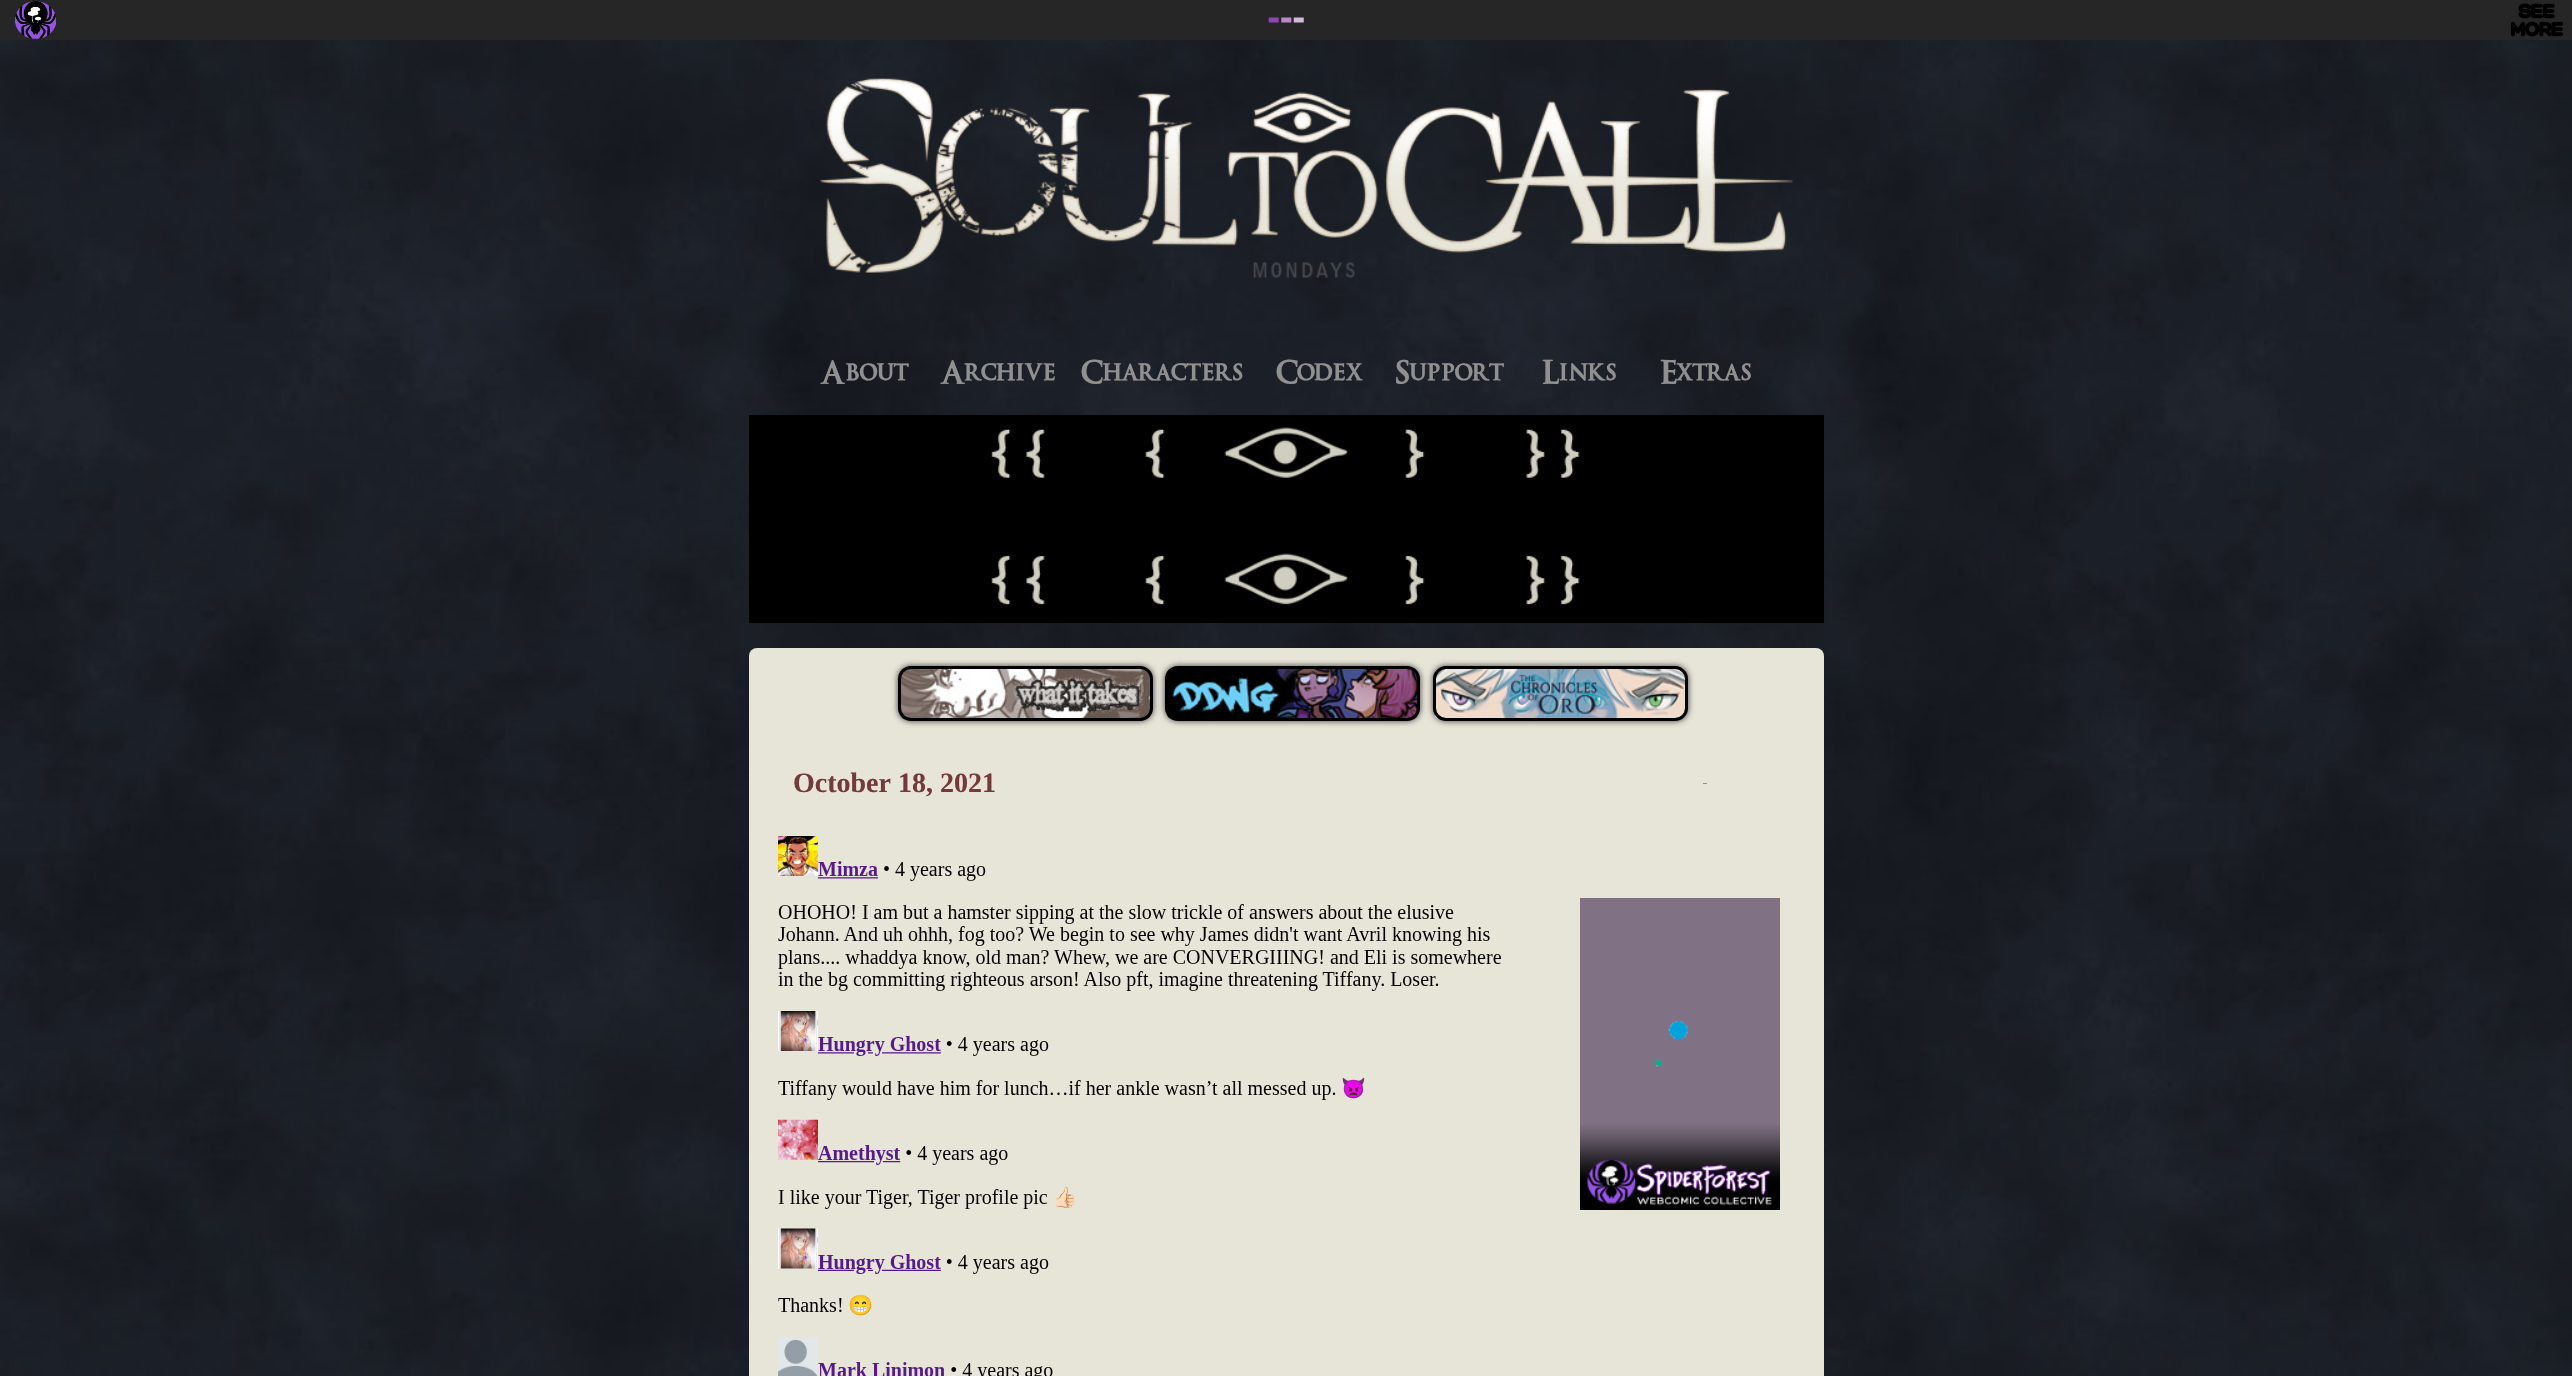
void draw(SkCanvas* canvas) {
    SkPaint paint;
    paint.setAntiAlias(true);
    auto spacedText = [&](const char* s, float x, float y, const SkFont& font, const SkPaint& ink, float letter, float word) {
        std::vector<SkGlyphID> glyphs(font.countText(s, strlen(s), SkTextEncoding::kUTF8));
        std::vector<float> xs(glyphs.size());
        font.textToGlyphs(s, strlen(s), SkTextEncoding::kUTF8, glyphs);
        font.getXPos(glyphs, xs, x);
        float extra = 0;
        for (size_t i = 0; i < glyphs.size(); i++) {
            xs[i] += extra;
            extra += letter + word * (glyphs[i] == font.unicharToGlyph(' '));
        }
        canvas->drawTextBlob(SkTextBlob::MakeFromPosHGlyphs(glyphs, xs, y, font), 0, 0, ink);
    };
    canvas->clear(0xFFFFFFFF);
    canvas->drawImageRect(SkImages::DeferredFromEncodedData(SkData::MakeFromFileName("img1.png")), SkRect::MakeXYWH(0, 40, 2572, 1336), SkSamplingOptions());
    paint.setColor(0xFF262626);
    canvas->drawRect(SkRect::MakeXYWH(0, 0, 2572, 40), paint);
    canvas->drawImageRect(SkImages::DeferredFromEncodedData(SkData::MakeFromFileName("img2.png")), SkRect::MakeXYWH(15, 1, 41, 38), SkSamplingOptions());
    canvas->drawImageRect(SkImages::DeferredFromEncodedData(SkData::MakeFromFileName("img3.png")), SkRect::MakeXYWH(1268, 17, 36, 6), SkSamplingOptions());
    canvas->drawImageRect(SkImages::DeferredFromEncodedData(SkData::MakeFromFileName("img4.png")), SkRect::MakeXYWH(2510, 3, 54, 34), SkSamplingOptions());
    canvas->drawImageRect(SkImages::DeferredFromEncodedData(SkData::MakeFromFileName("img5.png")), SkRect::MakeXYWH(820, 78, 973, 200), SkSamplingOptions());
    SkFont font1(fontMgr->matchFamilyStyle("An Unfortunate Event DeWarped", SkFontStyle::Bold()), 24);
    font1.setSubpixel(true);
    paint.setColor(0xFF909090);
    spacedText("About", 821, 384, font1, paint, 1.25f, 0);
    spacedText("Archive", 941, 384, font1, paint, 1.25f, 0);
    spacedText("Characters", 1082, 384, font1, paint, 1.25f, 0);
    spacedText("Codex", 1277, 384, font1, paint, 1.25f, 0);
    spacedText("Support", 1396, 384, font1, paint, 1.25f, 0);
    spacedText("Links", 1543, 384, font1, paint, 1.25f, 0);
    spacedText("Extras", 1661, 384, font1, paint, 1.25f, 0);
    paint.setColor(0xFF000000);
    canvas->drawRect(SkRect::MakeXYWH(749, 415, 1075, 208), paint);
    canvas->drawImageRect(SkImages::DeferredFromEncodedData(SkData::MakeFromFileName("img6.png")), SkRect::MakeXYWH(991, 429, 54, 49), SkSamplingOptions());
    canvas->drawImageRect(SkImages::DeferredFromEncodedData(SkData::MakeFromFileName("img7.png")), SkRect::MakeXYWH(1145, 429, 20, 49), SkSamplingOptions());
    canvas->drawImageRect(SkImages::DeferredFromEncodedData(SkData::MakeFromFileName("img8.png")), SkRect::MakeXYWH(1224, 427, 124, 51), SkSamplingOptions());
    canvas->drawImageRect(SkImages::DeferredFromEncodedData(SkData::MakeFromFileName("img9.png")), SkRect::MakeXYWH(1405, 429, 20, 49), SkSamplingOptions());
    canvas->drawImageRect(SkImages::DeferredFromEncodedData(SkData::MakeFromFileName("img10.png")), SkRect::MakeXYWH(1526, 429, 54, 49), SkSamplingOptions());
    canvas->drawImageRect(SkImages::DeferredFromEncodedData(SkData::MakeFromFileName("img11.png")), SkRect::MakeXYWH(991, 555, 54, 50), SkSamplingOptions());
    canvas->drawImageRect(SkImages::DeferredFromEncodedData(SkData::MakeFromFileName("img12.png")), SkRect::MakeXYWH(1145, 555, 20, 50), SkSamplingOptions());
    canvas->drawImageRect(SkImages::DeferredFromEncodedData(SkData::MakeFromFileName("img13.png")), SkRect::MakeXYWH(1224, 553, 124, 52), SkSamplingOptions());
    canvas->drawImageRect(SkImages::DeferredFromEncodedData(SkData::MakeFromFileName("img14.png")), SkRect::MakeXYWH(1405, 555, 20, 50), SkSamplingOptions());
    canvas->drawImageRect(SkImages::DeferredFromEncodedData(SkData::MakeFromFileName("img15.png")), SkRect::MakeXYWH(1526, 555, 54, 50), SkSamplingOptions());
    paint.setColor(0xFFE7E4D8);
    canvas->drawRoundRect(SkRect::MakeXYWH(749, 648, 1075, 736), 8, 8, paint);
    paint.setColor(0xBF000000);
    paint.setMaskFilter(SkMaskFilter::MakeBlur(kNormal_SkBlurStyle, 3));
    canvas->drawRoundRect(SkRect::MakeXYWH(898, 666, 255, 55), 13, 13, paint);
    paint.setMaskFilter(nullptr);
    canvas->drawImageRect(SkImages::DeferredFromEncodedData(SkData::MakeFromFileName("img16.png")), SkRect::MakeXYWH(900, 668, 250, 51), SkSamplingOptions());
    paint.setStyle(SkPaint::kStroke_Style);
    paint.setStrokeWidth(3);
    paint.setColor(0xFF000000);
    canvas->drawRoundRect(SkRect::MakeXYWH(899.5f, 667.5f, 252, 52), 11.5f, 11.5f, paint);
    paint.setStyle(SkPaint::kFill_Style);
    paint.setColor(0xBF000000);
    paint.setMaskFilter(SkMaskFilter::MakeBlur(kNormal_SkBlurStyle, 3));
    canvas->drawRoundRect(SkRect::MakeXYWH(1165, 666, 255, 55), 13, 13, paint);
    paint.setMaskFilter(nullptr);
    canvas->drawImageRect(SkImages::DeferredFromEncodedData(SkData::MakeFromFileName("img17.png")), SkRect::MakeXYWH(1167, 668, 251, 51), SkSamplingOptions());
    paint.setStyle(SkPaint::kStroke_Style);
    paint.setColor(0xFF000000);
    canvas->drawRoundRect(SkRect::MakeXYWH(1166.5f, 667.5f, 252, 52), 11.5f, 11.5f, paint);
    paint.setStyle(SkPaint::kFill_Style);
    paint.setColor(0xBF000000);
    paint.setMaskFilter(SkMaskFilter::MakeBlur(kNormal_SkBlurStyle, 3));
    canvas->drawRoundRect(SkRect::MakeXYWH(1433, 666, 255, 55), 13, 13, paint);
    paint.setMaskFilter(nullptr);
    canvas->drawImageRect(SkImages::DeferredFromEncodedData(SkData::MakeFromFileName("img18.png")), SkRect::MakeXYWH(1435, 668, 250, 51), SkSamplingOptions());
    paint.setStyle(SkPaint::kStroke_Style);
    paint.setColor(0xFF000000);
    canvas->drawRoundRect(SkRect::MakeXYWH(1434.5f, 667.5f, 252, 52), 11.5f, 11.5f, paint);
    SkFont font2(fontMgr->matchFamilyStyle("Liberation Serif", SkFontStyle::Bold()), 28);
    font2.setSubpixel(true);
    paint.setStyle(SkPaint::kFill_Style);
    paint.setColor(0xFF743A3A);
    canvas->drawString("October 18, 2021", 793, 792, font2, paint);
    canvas->drawImageRect(SkImages::DeferredFromEncodedData(SkData::MakeFromFileName("img19.png")), SkRect::MakeXYWH(778, 836, 723, 540), SkSamplingOptions());
    paint.setColor(0xFF909090);
    canvas->drawRect(SkRect::MakeXYWH(1703, 783, 4, 1), paint);
    paint.setColor(0xFF807284);
    canvas->drawRect(SkRect::MakeXYWH(1580, 898, 200, 284), paint);
    canvas->drawImageRect(SkImages::DeferredFromEncodedData(SkData::MakeFromFileName("img20.png")), SkRect::MakeXYWH(1654, 1021, 34, 46), SkSamplingOptions());
    canvas->drawImageRect(SkImages::DeferredFromEncodedData(SkData::MakeFromFileName("img21.png")), SkRect::MakeXYWH(1580, 1124, 200, 86), SkSamplingOptions());
}
